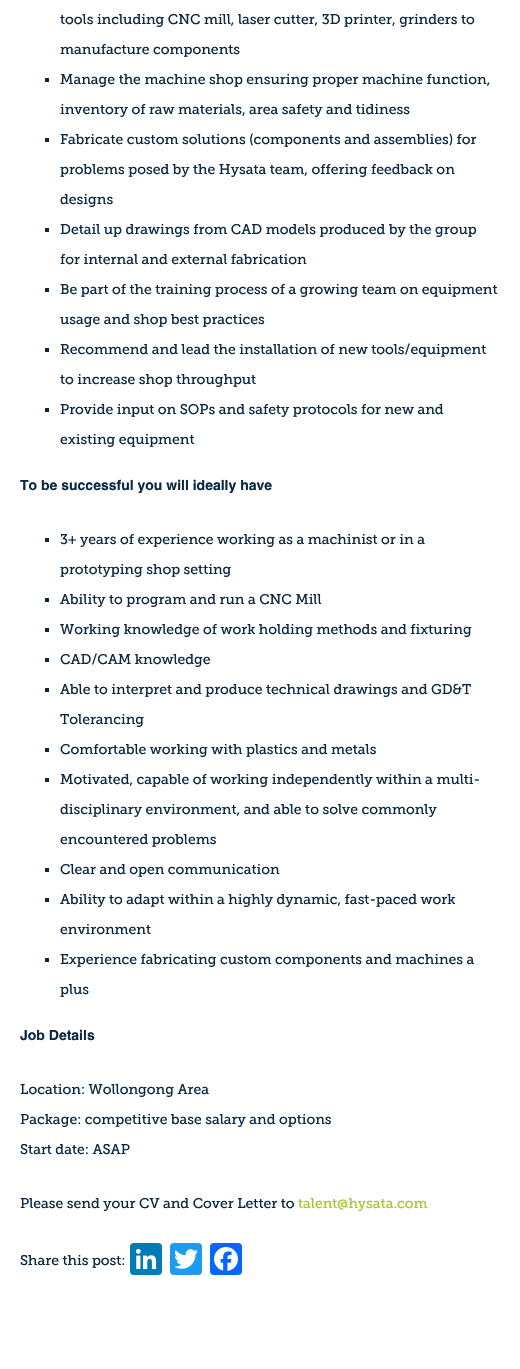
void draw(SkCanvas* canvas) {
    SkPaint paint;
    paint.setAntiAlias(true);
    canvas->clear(0xFFFFFFFF);
    SkFont font1(fontMgr->matchFamilyStyle("Museo Slab", SkFontStyle::Normal()), 14);
    font1.setSubpixel(true);
    paint.setColor(0xFF092743);
    canvas->drawString("tools including CNC mill, laser cutter, 3D printer, grinders to", 60, 24, font1, paint);
    canvas->drawString("manufacture components", 60, 54, font1, paint);
    canvas->drawRect(SkRect::MakeXYWH(45, 78, 4, 4), paint);
    canvas->drawString("Manage the machine shop ensuring proper machine function,", 60, 84, font1, paint);
    canvas->drawString("inventory of raw materials, area safety and tidiness", 60, 114, font1, paint);
    canvas->drawRect(SkRect::MakeXYWH(45, 138, 4, 4), paint);
    canvas->drawString("Fabricate custom solutions (components and assemblies) for", 60, 144, font1, paint);
    canvas->drawString("problems posed by the Hysata team, offering feedback on", 60, 174, font1, paint);
    canvas->drawString("designs", 60, 204, font1, paint);
    canvas->drawRect(SkRect::MakeXYWH(45, 228, 4, 4), paint);
    canvas->drawString("Detail up drawings from CAD models produced by the group", 60, 234, font1, paint);
    canvas->drawString("for internal and external fabrication", 60, 264, font1, paint);
    canvas->drawRect(SkRect::MakeXYWH(45, 288, 4, 4), paint);
    canvas->drawString("Be part of the training process of a growing team on equipment", 60, 294, font1, paint);
    canvas->drawString("usage and shop best practices", 60, 324, font1, paint);
    canvas->drawRect(SkRect::MakeXYWH(45, 348, 4, 4), paint);
    canvas->drawString("Recommend and lead the installation of new tools/equipment", 60, 354, font1, paint);
    canvas->drawString("to increase shop throughput", 60, 384, font1, paint);
    canvas->drawRect(SkRect::MakeXYWH(45, 408, 4, 4), paint);
    canvas->drawString("Provide input on SOPs and safety protocols for new and", 60, 414, font1, paint);
    canvas->drawString("existing equipment", 60, 444, font1, paint);
    SkFont font2(fontMgr->matchFamilyStyle("Helvetica", SkFontStyle::Bold()), 14);
    font2.setSubpixel(true);
    canvas->drawString("To be successful you will ideally have", 20, 490, font2, paint);
    canvas->drawRect(SkRect::MakeXYWH(45, 538, 4, 4), paint);
    canvas->drawString("3+ years of experience working as a machinist or in a", 60, 544, font1, paint);
    canvas->drawString("prototyping shop setting", 60, 574, font1, paint);
    canvas->drawRect(SkRect::MakeXYWH(45, 598, 4, 4), paint);
    canvas->drawString("Ability to program and run a CNC Mill", 60, 604, font1, paint);
    canvas->drawRect(SkRect::MakeXYWH(45, 628, 4, 4), paint);
    canvas->drawString("Working knowledge of work holding methods and fixturing", 60, 634, font1, paint);
    canvas->drawRect(SkRect::MakeXYWH(45, 658, 4, 4), paint);
    canvas->drawString("CAD/CAM knowledge", 60, 664, font1, paint);
    canvas->drawRect(SkRect::MakeXYWH(45, 688, 4, 4), paint);
    canvas->drawString("Able to interpret and produce technical drawings and GD&T", 60, 694, font1, paint);
    canvas->drawString("Tolerancing", 60, 724, font1, paint);
    canvas->drawRect(SkRect::MakeXYWH(45, 748, 4, 4), paint);
    canvas->drawString("Comfortable working with plastics and metals", 60, 754, font1, paint);
    canvas->drawRect(SkRect::MakeXYWH(45, 778, 4, 4), paint);
    canvas->drawString("Motivated, capable of working independently within a multi-", 60, 784, font1, paint);
    canvas->drawString("disciplinary environment, and able to solve commonly", 60, 814, font1, paint);
    canvas->drawString("encountered problems", 60, 844, font1, paint);
    canvas->drawRect(SkRect::MakeXYWH(45, 868, 4, 4), paint);
    canvas->drawString("Clear and open communication", 60, 874, font1, paint);
    canvas->drawRect(SkRect::MakeXYWH(45, 898, 4, 4), paint);
    canvas->drawString("Ability to adapt within a highly dynamic, fast-paced work", 60, 904, font1, paint);
    canvas->drawString("environment", 60, 934, font1, paint);
    canvas->drawRect(SkRect::MakeXYWH(45, 958, 4, 4), paint);
    canvas->drawString("Experience fabricating custom components and machines a", 60, 964, font1, paint);
    canvas->drawString("plus", 60, 994, font1, paint);
    canvas->drawString("Job Details", 20, 1040, font2, paint);
    canvas->drawString("Location: Wollongong Area", 20, 1094, font1, paint);
    canvas->drawString("Package: competitive base salary and options", 20, 1124, font1, paint);
    canvas->drawString("Start date: ASAP", 20, 1154, font1, paint);
    canvas->drawString("Please send your CV and Cover Letter to", 20, 1208, font1, paint);
    paint.setColor(0xFFA9C42D);
    canvas->drawString("talent@hysata.com", 298, 1208, font1, paint);
    paint.setColor(0xFF092743);
    canvas->drawString("Share this post:", 20, 1265, font1, paint);
    paint.setColor(0xFF007BB5);
    canvas->drawRoundRect(SkRect::MakeXYWH(130, 1243, 32, 32), 4, 4, paint);
    canvas->drawImageRect(SkImages::DeferredFromEncodedData(SkData::MakeFromFileName("img1.png")), SkRect::MakeXYWH(135, 1248, 22, 22), SkSamplingOptions());
    paint.setColor(0xFF1D9BF0);
    canvas->drawRoundRect(SkRect::MakeXYWH(170, 1243, 32, 32), 4, 4, paint);
    canvas->drawImageRect(SkImages::DeferredFromEncodedData(SkData::MakeFromFileName("img2.png")), SkRect::MakeXYWH(174, 1249, 24, 20), SkSamplingOptions());
    paint.setColor(0xFF0866FF);
    canvas->drawRoundRect(SkRect::MakeXYWH(210, 1243, 32, 32), 4, 4, paint);
    canvas->drawImageRect(SkImages::DeferredFromEncodedData(SkData::MakeFromFileName("img3.png")), SkRect::MakeXYWH(214, 1247, 24, 24), SkSamplingOptions());
}
